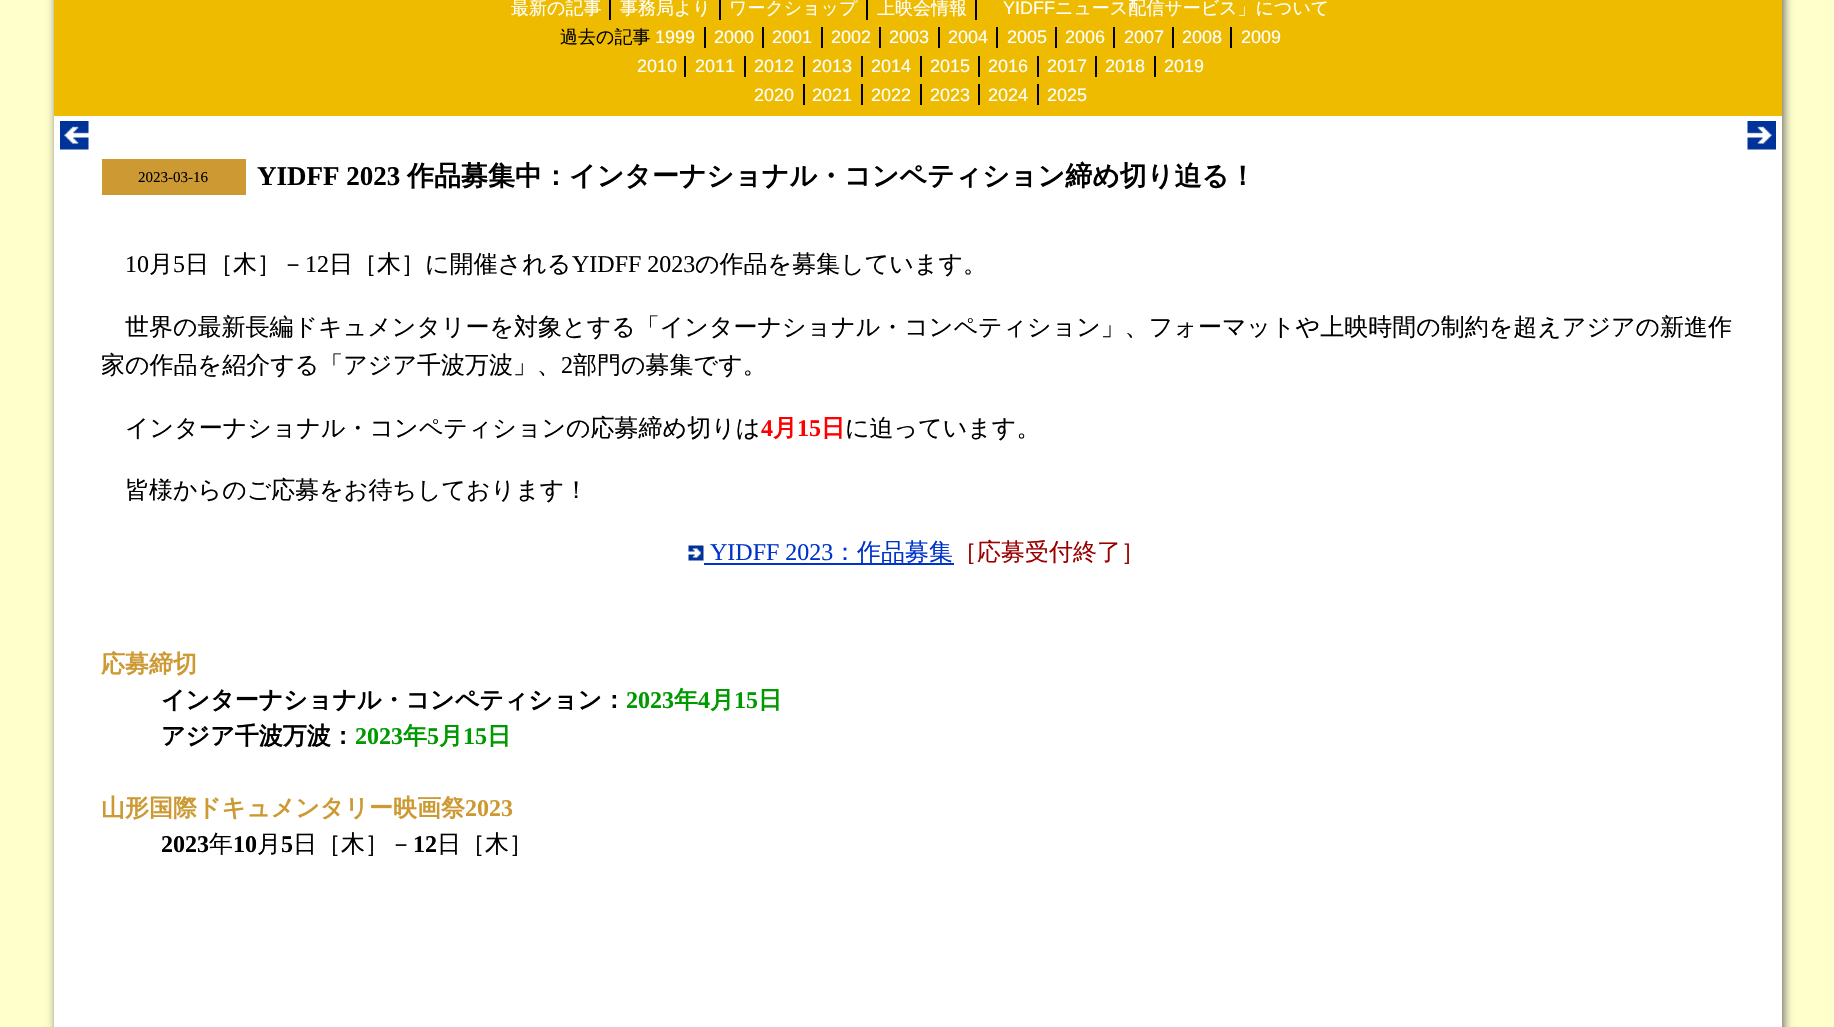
void draw(SkCanvas* canvas) {
    SkPaint paint;
    paint.setAntiAlias(true);
    canvas->clear(0xFFFFFFCC);
    paint.setColor(0xFF666666);
    paint.setMaskFilter(SkMaskFilter::MakeBlur(kNormal_SkBlurStyle, 4.5f));
    canvas->drawRect(SkRect::MakeXYWH(56, -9, 1728, 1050), paint);
    paint.setMaskFilter(nullptr);
    paint.setColor(0xFFEEBB00);
    canvas->drawRect(SkRect::MakeXYWH(54, 0, 1728, 116), paint);
    SkFont font1(fontMgr->matchFamilyStyle("WenQuanYi Zen Hei", SkFontStyle(500, SkFontStyle::kNormal_Width, SkFontStyle::kUpright_Slant)), 18);
    font1.setSubpixel(true);
    paint.setColor(0xFFFFFFFF);
    canvas->drawString("最新の記事", 511, 14, font1, paint);
    canvas->drawString("事務局より", 620, 14, font1, paint);
    paint.setColor(0xFF000000);
    canvas->drawRect(SkRect::MakeXYWH(609, 0, 2, 20), paint);
    paint.setColor(0xFFFFFFFF);
    canvas->drawString("ワークショップ", 729, 14, font1, paint);
    paint.setColor(0xFF000000);
    canvas->drawRect(SkRect::MakeXYWH(719, 0, 2, 20), paint);
    paint.setColor(0xFFFFFFFF);
    canvas->drawString("上映会情報", 877, 14, font1, paint);
    paint.setColor(0xFF000000);
    canvas->drawRect(SkRect::MakeXYWH(866, 0, 2, 20), paint);
    SkFont font2(fontMgr->matchFamilyStyle("Liberation Sans", SkFontStyle::Normal()), 18);
    font2.setSubpixel(true);
    paint.setColor(0xFFFFFFFF);
    canvas->drawString("YIDFF", 1003, 14, font2, paint);
    paint.setColor(0xFF000000);
    canvas->drawRect(SkRect::MakeXYWH(975, 0, 2, 20), paint);
    paint.setColor(0xFFFFFFFF);
    canvas->drawString("ニュース配信サービス」について", 1055, 14, font1, paint);
    paint.setColor(0xFF000000);
    canvas->drawString("過去の記事", 560, 43, font1, paint);
    paint.setColor(0xFFFFFFFF);
    canvas->drawString("1999", 655, 43, font2, paint);
    canvas->drawString("2000", 714, 43, font2, paint);
    paint.setColor(0xFF000000);
    canvas->drawRect(SkRect::MakeXYWH(704, 27, 2, 21), paint);
    paint.setColor(0xFFFFFFFF);
    canvas->drawString("2001", 772, 43, font2, paint);
    paint.setColor(0xFF000000);
    canvas->drawRect(SkRect::MakeXYWH(762, 27, 2, 21), paint);
    paint.setColor(0xFFFFFFFF);
    canvas->drawString("2002", 831, 43, font2, paint);
    paint.setColor(0xFF000000);
    canvas->drawRect(SkRect::MakeXYWH(821, 27, 2, 21), paint);
    paint.setColor(0xFFFFFFFF);
    canvas->drawString("2003", 889, 43, font2, paint);
    paint.setColor(0xFF000000);
    canvas->drawRect(SkRect::MakeXYWH(879, 27, 2, 21), paint);
    paint.setColor(0xFFFFFFFF);
    canvas->drawString("2004", 948, 43, font2, paint);
    paint.setColor(0xFF000000);
    canvas->drawRect(SkRect::MakeXYWH(938, 27, 2, 21), paint);
    paint.setColor(0xFFFFFFFF);
    canvas->drawString("2005", 1007, 43, font2, paint);
    paint.setColor(0xFF000000);
    canvas->drawRect(SkRect::MakeXYWH(996, 27, 2, 21), paint);
    paint.setColor(0xFFFFFFFF);
    canvas->drawString("2006", 1065, 43, font2, paint);
    paint.setColor(0xFF000000);
    canvas->drawRect(SkRect::MakeXYWH(1055, 27, 2, 21), paint);
    paint.setColor(0xFFFFFFFF);
    canvas->drawString("2007", 1124, 43, font2, paint);
    paint.setColor(0xFF000000);
    canvas->drawRect(SkRect::MakeXYWH(1113, 27, 2, 21), paint);
    paint.setColor(0xFFFFFFFF);
    canvas->drawString("2008", 1182, 43, font2, paint);
    paint.setColor(0xFF000000);
    canvas->drawRect(SkRect::MakeXYWH(1172, 27, 2, 21), paint);
    paint.setColor(0xFFFFFFFF);
    canvas->drawString("2009", 1241, 43, font2, paint);
    paint.setColor(0xFF000000);
    canvas->drawRect(SkRect::MakeXYWH(1230, 27, 2, 21), paint);
    paint.setColor(0xFFFFFFFF);
    canvas->drawString("2010", 637, 72, font2, paint);
    canvas->drawString("2011", 695, 72, font2, paint);
    paint.setColor(0xFF000000);
    canvas->drawRect(SkRect::MakeXYWH(684, 56, 2, 21), paint);
    paint.setColor(0xFFFFFFFF);
    canvas->drawString("2012", 754, 72, font2, paint);
    paint.setColor(0xFF000000);
    canvas->drawRect(SkRect::MakeXYWH(744, 56, 2, 21), paint);
    paint.setColor(0xFFFFFFFF);
    canvas->drawString("2013", 812, 72, font2, paint);
    paint.setColor(0xFF000000);
    canvas->drawRect(SkRect::MakeXYWH(803, 56, 2, 21), paint);
    paint.setColor(0xFFFFFFFF);
    canvas->drawString("2014", 871, 72, font2, paint);
    paint.setColor(0xFF000000);
    canvas->drawRect(SkRect::MakeXYWH(861, 56, 2, 21), paint);
    paint.setColor(0xFFFFFFFF);
    canvas->drawString("2015", 930, 72, font2, paint);
    paint.setColor(0xFF000000);
    canvas->drawRect(SkRect::MakeXYWH(920, 56, 2, 21), paint);
    paint.setColor(0xFFFFFFFF);
    canvas->drawString("2016", 988, 72, font2, paint);
    paint.setColor(0xFF000000);
    canvas->drawRect(SkRect::MakeXYWH(978, 56, 2, 21), paint);
    paint.setColor(0xFFFFFFFF);
    canvas->drawString("2017", 1047, 72, font2, paint);
    paint.setColor(0xFF000000);
    canvas->drawRect(SkRect::MakeXYWH(1037, 56, 2, 21), paint);
    paint.setColor(0xFFFFFFFF);
    canvas->drawString("2018", 1105, 72, font2, paint);
    paint.setColor(0xFF000000);
    canvas->drawRect(SkRect::MakeXYWH(1095, 56, 2, 21), paint);
    paint.setColor(0xFFFFFFFF);
    canvas->drawString("2019", 1164, 72, font2, paint);
    paint.setColor(0xFF000000);
    canvas->drawRect(SkRect::MakeXYWH(1154, 56, 2, 21), paint);
    paint.setColor(0xFFFFFFFF);
    canvas->drawString("2020", 754, 101, font2, paint);
    canvas->drawString("2021", 812, 101, font2, paint);
    paint.setColor(0xFF000000);
    canvas->drawRect(SkRect::MakeXYWH(803, 84, 2, 21), paint);
    paint.setColor(0xFFFFFFFF);
    canvas->drawString("2022", 871, 101, font2, paint);
    paint.setColor(0xFF000000);
    canvas->drawRect(SkRect::MakeXYWH(861, 84, 2, 21), paint);
    paint.setColor(0xFFFFFFFF);
    canvas->drawString("2023", 930, 101, font2, paint);
    paint.setColor(0xFF000000);
    canvas->drawRect(SkRect::MakeXYWH(920, 84, 2, 21), paint);
    paint.setColor(0xFFFFFFFF);
    canvas->drawString("2024", 988, 101, font2, paint);
    paint.setColor(0xFF000000);
    canvas->drawRect(SkRect::MakeXYWH(978, 84, 2, 21), paint);
    paint.setColor(0xFFFFFFFF);
    canvas->drawString("2025", 1047, 101, font2, paint);
    paint.setColor(0xFF000000);
    canvas->drawRect(SkRect::MakeXYWH(1037, 84, 2, 21), paint);
    paint.setColor(0xFFFFFFFF);
    canvas->drawRect(SkRect::MakeXYWH(54, 116, 1728, 911), paint);
    canvas->drawImageRect(SkImages::DeferredFromEncodedData(SkData::MakeFromFileName("img1.png")), SkRect::MakeXYWH(60, 121, 29, 29), SkSamplingOptions());
    canvas->drawImageRect(SkImages::DeferredFromEncodedData(SkData::MakeFromFileName("img2.png")), SkRect::MakeXYWH(1747, 121, 29, 29), SkSamplingOptions());
    paint.setColor(0xFFCC9933);
    canvas->drawRect(SkRect::MakeXYWH(102, 159, 144, 36), paint);
    SkFont font3(fontMgr->matchFamilyStyle("Liberation Serif", SkFontStyle::Normal()), 15);
    font3.setSubpixel(true);
    paint.setColor(0xFF000000);
    canvas->drawString("2023-03-16", 138, 182, font3, paint);
    SkFont font4(fontMgr->matchFamilyStyle("Liberation Serif", SkFontStyle::Bold()), 27);
    font4.setSubpixel(true);
    canvas->drawString("YIDFF 2023", 257, 185, font4, paint);
    SkFont font5(fontMgr->matchFamilyStyle("WenQuanYi Zen Hei", SkFontStyle::Bold()), 27);
    font5.setSubpixel(true);
    canvas->drawString("作品募集中：インターナショナル・コンペティション締め切り迫る！", 407, 185, font5, paint);
    SkFont font6(fontMgr->matchFamilyStyle("Liberation Serif", SkFontStyle::Normal()), 24);
    font6.setSubpixel(true);
    canvas->drawString("10", 125, 272, font6, paint);
    SkFont font7(fontMgr->matchFamilyStyle("WenQuanYi Zen Hei", SkFontStyle(500, SkFontStyle::kNormal_Width, SkFontStyle::kUpright_Slant)), 24);
    font7.setSubpixel(true);
    canvas->drawString("月", 149, 272, font7, paint);
    canvas->drawString("5", 173, 272, font6, paint);
    canvas->drawString("日［木］－", 185, 272, font7, paint);
    canvas->drawString("12", 305, 272, font6, paint);
    canvas->drawString("日［木］に開催される", 329, 272, font7, paint);
    canvas->drawString("YIDFF 2023", 572, 272, font6, paint);
    canvas->drawString("の作品を募集しています。", 695, 272, font7, paint);
    canvas->drawString("世界の最新長編ドキュメンタリーを対象とする「インターナショナル・コンペティション」、フォーマットや上映時間の制約を超えアジアの新進作", 125, 335, font7, paint);
    canvas->drawString("家の作品を紹介する「アジア千波万波」、", 101, 373, font7, paint);
    canvas->drawString("2", 561, 373, font6, paint);
    canvas->drawString("部門の募集です。", 573, 373, font7, paint);
    canvas->drawString("インターナショナル・コンペティションの応募締め切りは", 125, 436, font7, paint);
    SkFont font8(fontMgr->matchFamilyStyle("Liberation Serif", SkFontStyle::Bold()), 24);
    font8.setSubpixel(true);
    paint.setColor(0xFFFF0000);
    canvas->drawString("4", 761, 436, font8, paint);
    SkFont font9(fontMgr->matchFamilyStyle("WenQuanYi Zen Hei", SkFontStyle::Bold()), 24);
    font9.setSubpixel(true);
    canvas->drawString("月", 773, 436, font9, paint);
    canvas->drawString("15", 797, 436, font8, paint);
    canvas->drawString("日", 821, 436, font9, paint);
    paint.setColor(0xFF000000);
    canvas->drawString("に迫っています。", 845, 436, font7, paint);
    canvas->drawString("皆様からのご応募をお待ちしております！", 125, 498, font7, paint);
    canvas->drawImageRect(SkImages::DeferredFromEncodedData(SkData::MakeFromFileName("img3.png")), SkRect::MakeXYWH(688, 545, 16, 16), SkSamplingOptions());
    paint.setColor(0xFF0033CC);
    canvas->drawString("YIDFF 2023", 710, 560, font6, paint);
    canvas->drawRect(SkRect::MakeXYWH(704, 563, 250, 2), paint);
    canvas->drawString("：作品募集", 833, 560, font7, paint);
    paint.setColor(0xFF990000);
    canvas->drawString("［応募受付終了］", 953, 560, font7, paint);
    paint.setColor(0xFFCC9933);
    canvas->drawString("応募締切", 101, 672, font9, paint);
    paint.setColor(0xFF000000);
    canvas->drawString("インターナショナル・コンペティション：", 161, 708, font9, paint);
    paint.setColor(0xFF009900);
    canvas->drawString("2023", 626, 708, font8, paint);
    canvas->drawString("年", 674, 708, font9, paint);
    canvas->drawString("4", 698, 708, font8, paint);
    canvas->drawString("月", 710, 708, font9, paint);
    canvas->drawString("15", 734, 708, font8, paint);
    canvas->drawString("日", 758, 708, font9, paint);
    paint.setColor(0xFF000000);
    canvas->drawString("アジア千波万波：", 161, 744, font9, paint);
    paint.setColor(0xFF009900);
    canvas->drawString("2023", 355, 744, font8, paint);
    canvas->drawString("年", 403, 744, font9, paint);
    canvas->drawString("5", 427, 744, font8, paint);
    canvas->drawString("月", 439, 744, font9, paint);
    canvas->drawString("15", 463, 744, font8, paint);
    canvas->drawString("日", 487, 744, font9, paint);
    paint.setColor(0xFFCC9933);
    canvas->drawString("山形国際ドキュメンタリー映画祭", 101, 816, font9, paint);
    canvas->drawString("2023", 465, 816, font8, paint);
    paint.setColor(0xFF000000);
    canvas->drawString("2023", 161, 852, font8, paint);
    canvas->drawString("年", 209, 852, font7, paint);
    canvas->drawString("10", 233, 852, font8, paint);
    canvas->drawString("月", 257, 852, font7, paint);
    canvas->drawString("5", 281, 852, font8, paint);
    canvas->drawString("日［木］－", 293, 852, font7, paint);
    canvas->drawString("12", 413, 852, font8, paint);
    canvas->drawString("日［木］", 437, 852, font7, paint);
}
